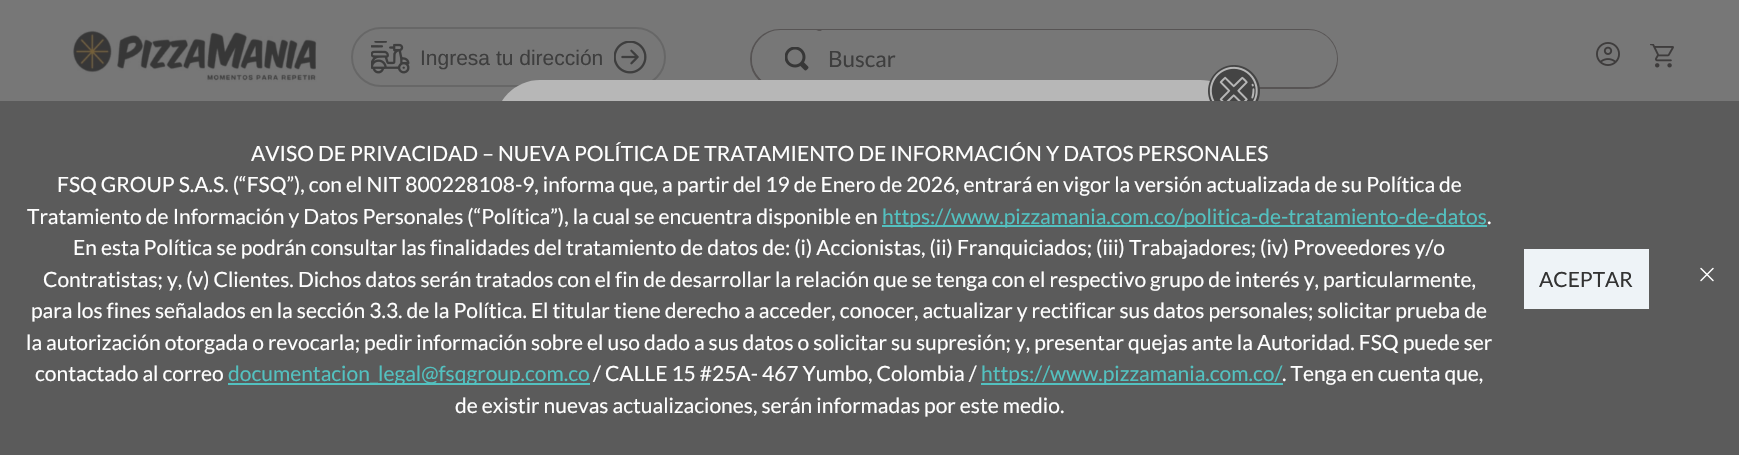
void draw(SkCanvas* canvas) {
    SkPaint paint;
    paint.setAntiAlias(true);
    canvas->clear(0xFF777777);
    canvas->drawImageRect(SkImages::DeferredFromEncodedData(SkData::MakeFromFileName("img1.png")), SkRect::MakeXYWH(72, 30, 245, 52), SkSamplingOptions());
    paint.setStyle(SkPaint::kStroke_Style);
    paint.setStrokeWidth(2);
    paint.setColor(0xFF676767);
    canvas->drawRoundRect(SkRect::MakeXYWH(352, 28, 313, 58), 29, 29, paint);
    canvas->drawImageRect(SkImages::DeferredFromEncodedData(SkData::MakeFromFileName("img2.png")), SkRect::MakeXYWH(371, 41, 39, 33), SkSamplingOptions());
    SkFont font1(fontMgr->matchFamilyStyle("Liberation Sans", SkFontStyle::Normal()), 21);
    font1.setSubpixel(true);
    paint.setStyle(SkPaint::kFill_Style);
    paint.setColor(0xFF3E3E3E);
    canvas->drawString("Ingresa tu dirección", 420, 65, font1, paint);
    canvas->drawImageRect(SkImages::DeferredFromEncodedData(SkData::MakeFromFileName("img3.png")), SkRect::MakeXYWH(614, 41, 33, 33), SkSamplingOptions());
    paint.setStyle(SkPaint::kStroke_Style);
    paint.setColor(0xFF575454);
    canvas->drawRoundRect(SkRect::MakeXYWH(751, 30, 586, 58), 29, 29, paint);
    paint.setStyle(SkPaint::kFill_Style);
    paint.setColor(0xFF777777);
    canvas->drawPath(SkPathBuilder().moveTo(780.5f, 30).lineTo(815, 30).cubicTo(818.5f, 30, 821, 32.5f, 821, 36).lineTo(821, 81).cubicTo(821, 84.5f, 818.5f, 87, 815, 87).lineTo(780.5f, 87).cubicTo(765, 87, 752, 74, 752, 58.5f).cubicTo(752, 43, 765, 30, 780.5f, 30).close().detach(), paint);
    canvas->drawImageRect(SkImages::DeferredFromEncodedData(SkData::MakeFromFileName("img4.png")), SkRect::MakeXYWH(785, 47, 24, 24), SkSamplingOptions());
    canvas->drawPath(SkPathBuilder().moveTo(822.5f, 30).lineTo(1308.5f, 30).cubicTo(1324, 30, 1337, 43, 1337, 58.5f).cubicTo(1337, 74, 1324, 87, 1308.5f, 87).lineTo(822.5f, 87).cubicTo(821.5f, 87, 821, 86.5f, 821, 85.5f).lineTo(821, 31.5f).cubicTo(821, 30.5f, 821.5f, 30, 822.5f, 30).close().detach(), paint);
    SkFont font2(fontMgr->matchFamilyStyle("Lato", SkFontStyle::Normal()), 22.5f);
    font2.setSubpixel(true);
    paint.setColor(0xFF3E3E3E);
    canvas->drawString("Buscar", 828, 67, font2, paint);
    canvas->drawImageRect(SkImages::DeferredFromEncodedData(SkData::MakeFromFileName("img5.png")), SkRect::MakeXYWH(1596, 42, 24, 24), SkSamplingOptions());
    canvas->drawImageRect(SkImages::DeferredFromEncodedData(SkData::MakeFromFileName("img6.png")), SkRect::MakeXYWH(1650, 44, 24, 24), SkSamplingOptions());
    paint.setColor(0xFFB7B7B7);
    canvas->drawRoundRect(SkRect::MakeXYWH(495, 80, 750, 297), 45, 45, paint);
    canvas->drawImageRect(SkImages::DeferredFromEncodedData(SkData::MakeFromFileName("img7.png")), SkRect::MakeXYWH(1208, 65, 52, 36), SkSamplingOptions());
    paint.setColor(0xFF5B5B5B);
    canvas->drawRect(SkRect::MakeXYWH(0, 101, 1739, 354), paint);
    SkFont font3(fontMgr->matchFamilyStyle("Lato", SkFontStyle::Normal()), 21);
    font3.setSubpixel(true);
    paint.setColor(0xFFFFFFFF);
    canvas->drawString("AVISO DE PRIVACIDAD – NUEVA POLÍTICA DE TRATAMIENTO DE INFORMACIÓN Y DATOS PERSONALES", 251, 161, font3, paint);
    canvas->drawString("FSQ GROUP S.A.S. (“FSQ”), con el NIT 800228108-9, informa que, a partir del 19 de Enero de 2026, entrará en vigor la versión actualizada de su Política de", 57, 192, font3, paint);
    canvas->drawString("Tratamiento de Información y Datos Personales (“Política”), la cual se encuentra disponible en", 27, 224, font3, paint);
    paint.setColor(0xFF53C1C0);
    canvas->drawRect(SkRect::MakeXYWH(882, 225, 605, 2), paint);
    canvas->drawString("https://www.pizzamania.com.co/politica-de-tratamiento-de-datos", 882, 224, font3, paint);
    paint.setColor(0xFFFFFFFF);
    canvas->drawString(".", 1487, 224, font3, paint);
    canvas->drawString("En esta Política se podrán consultar las finalidades del tratamiento de datos de: (i) Accionistas, (ii) Franquiciados; (iii) Trabajadores; (iv) Proveedores y/o", 73, 255, font3, paint);
    canvas->drawString("Contratistas; y, (v) Clientes. Dichos datos serán tratados con el fin de desarrollar la relación que se tenga con el respectivo grupo de interés y, particularmente,", 43, 287, font3, paint);
    canvas->drawString("para los fines señalados en la sección 3.3. de la Política. El titular tiene derecho a acceder, conocer, actualizar y rectificar sus datos personales; solicitar prueba de", 31, 318, font3, paint);
    canvas->drawString("la autorización otorgada o revocarla; pedir información sobre el uso dado a sus datos o solicitar su supresión; y, presentar quejas ante la Autoridad. FSQ puede ser", 26, 350, font3, paint);
    canvas->drawString("contactado al correo", 35, 381, font3, paint);
    paint.setColor(0xFF53C1C0);
    canvas->drawRect(SkRect::MakeXYWH(228, 383, 362, 2), paint);
    canvas->drawString("documentacion_legal@fsqgroup.com.co", 228, 381, font3, paint);
    paint.setColor(0xFFFFFFFF);
    canvas->drawString("/ CALLE 15 #25A- 467 Yumbo, Colombia /", 593, 381, font3, paint);
    paint.setColor(0xFF53C1C0);
    canvas->drawRect(SkRect::MakeXYWH(981, 383, 302, 2), paint);
    canvas->drawString("https://www.pizzamania.com.co/", 981, 381, font3, paint);
    paint.setColor(0xFFFFFFFF);
    canvas->drawString(". Tenga en cuenta que,", 1282, 381, font3, paint);
    canvas->drawString("de existir nuevas actualizaciones, serán informadas por este medio.", 455, 413, font3, paint);
    paint.setColor(0xFFEEF3F7);
    canvas->drawRect(SkRect::MakeXYWH(1524, 249, 125, 60), paint);
    paint.setColor(0xFF333333);
    canvas->drawString("ACEPTAR", 1539, 287, font3, paint);
    paint.setStyle(SkPaint::kStroke_Style);
    paint.setStrokeWidth(1.5f);
    paint.setStrokeCap(SkPaint::kRound_Cap);
    paint.setStrokeJoin(SkPaint::kRound_Join);
    paint.setColor(0xFFFFFFFF);
    canvas->drawPath(SkPathBuilder().moveTo(1713, 268.5f).lineTo(1701, 280.5f).moveTo(1701, 268.5f).lineTo(1713, 280.5f).detach(), paint);
}
